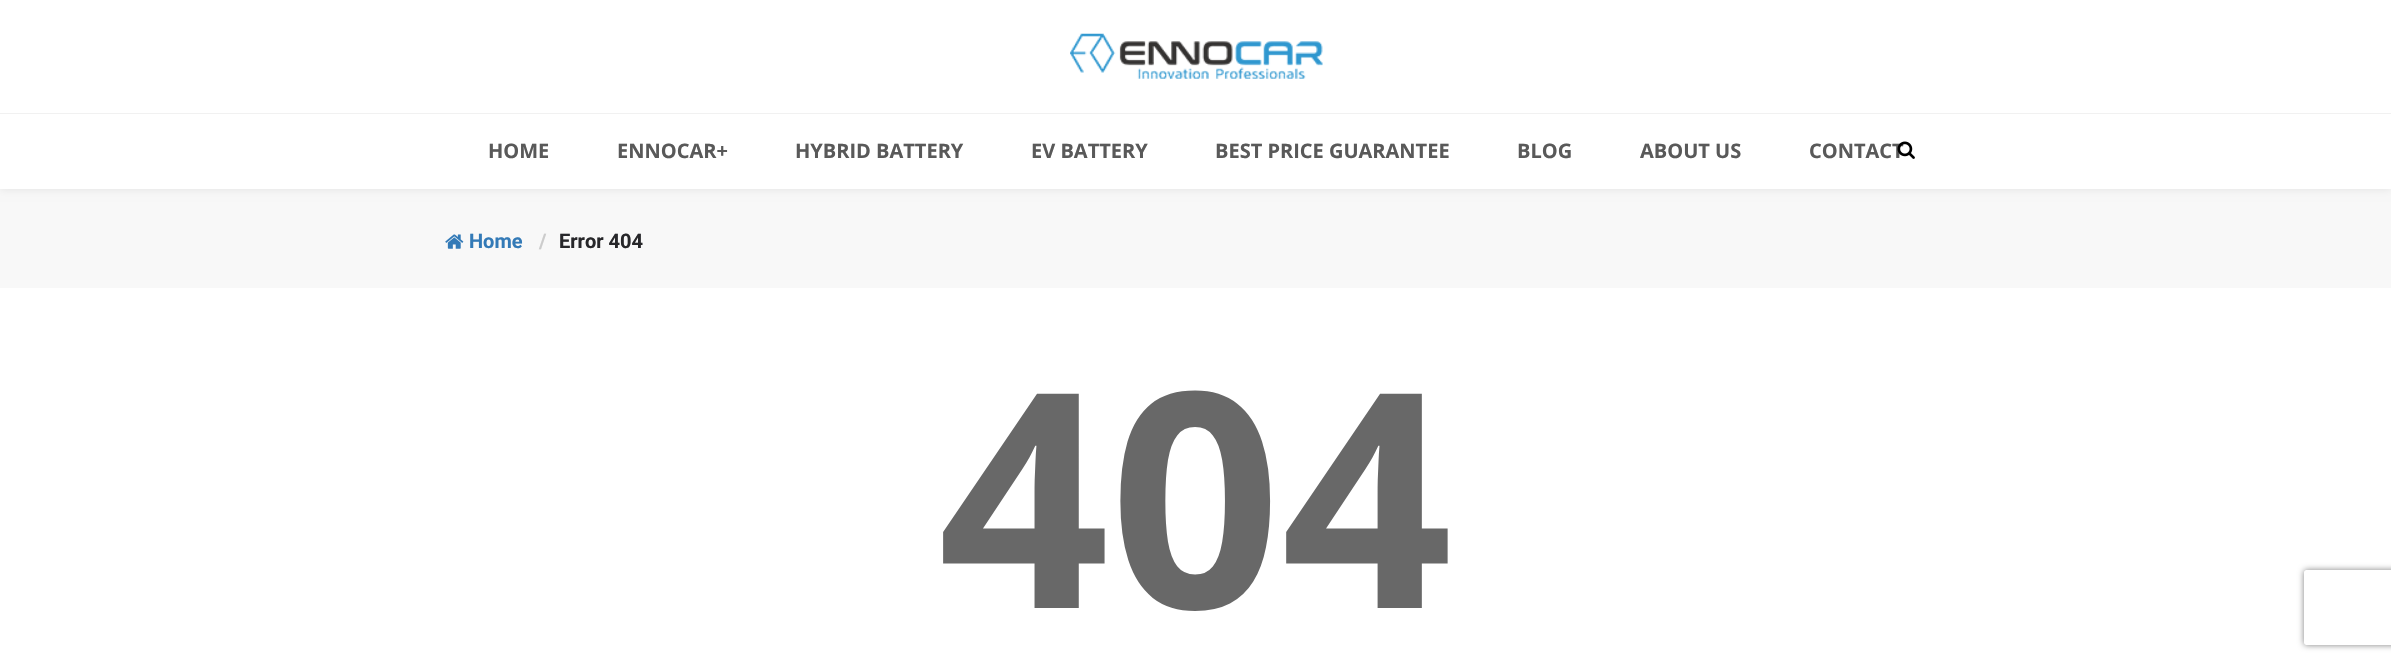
void draw(SkCanvas* canvas) {
    SkPaint paint;
    paint.setAntiAlias(true);
    canvas->clear(0xFFFFFFFF);
    paint.setColor(0xFFF8F8F8);
    canvas->drawRect(SkRect::MakeXYWH(0, 189, 2391, 99), paint);
    paint.setColor(0x17000000);
    paint.setMaskFilter(SkMaskFilter::MakeBlur(kNormal_SkBlurStyle, 4.5f));
    canvas->drawRect(SkRect::MakeXYWH(0, 0, 2391, 189), paint);
    paint.setMaskFilter(nullptr);
    paint.setColor(0xFFFFFFFF);
    canvas->drawRect(SkRect::MakeXYWH(0, 0, 2391, 189), paint);
    canvas->drawImageRect(SkImages::DeferredFromEncodedData(SkData::MakeFromFileName("img1.png")), SkRect::MakeXYWH(1070, 33, 253, 46), SkSamplingOptions());
    paint.setColor(0xFFF1F1F1);
    canvas->drawRect(SkRect::MakeXYWH(0, 113, 2391, 1), paint);
    SkFont font1(fontMgr->matchFamilyStyle("Open Sans", SkFontStyle::Bold()), 20);
    font1.setSubpixel(true);
    paint.setColor(0xFF595959);
    canvas->drawString("HOME", 488, 158, font1, paint);
    canvas->drawString("ENNOCAR+", 617, 158, font1, paint);
    canvas->drawString("HYBRID BATTERY", 795, 158, font1, paint);
    canvas->drawString("EV BATTERY", 1031, 158, font1, paint);
    canvas->drawString("BEST PRICE GUARANTEE", 1215, 158, font1, paint);
    canvas->drawString("BLOG", 1517, 158, font1, paint);
    canvas->drawString("ABOUT US", 1640, 158, font1, paint);
    canvas->drawString("CONTACT", 1809, 158, font1, paint);
    canvas->drawImageRect(SkImages::DeferredFromEncodedData(SkData::MakeFromFileName("img2.png")), SkRect::MakeXYWH(1897, 141, 18, 18), SkSamplingOptions());
    canvas->drawImageRect(SkImages::DeferredFromEncodedData(SkData::MakeFromFileName("img3.png")), SkRect::MakeXYWH(445, 234, 19, 15), SkSamplingOptions());
    SkFont font2(fontMgr->matchFamilyStyle("Roboto", SkFontStyle::Bold()), 20);
    font2.setSubpixel(true);
    paint.setColor(0xFF337AB7);
    canvas->drawString("Home", 469, 248, font2, paint);
    paint.setColor(0xFFCCCCCC);
    canvas->drawString("/", 539, 248, font2, paint);
    paint.setColor(0xFF27272A);
    canvas->drawString("Error 404", 559, 248, font2, paint);
    SkFont font3(fontMgr->matchFamilyStyle("Open Sans", SkFontStyle::Bold()), 300);
    font3.setSubpixel(true);
    paint.setColor(0xFF686868);
    canvas->drawString("404", 938, 608, font3, paint);
    canvas->save();
    canvas->clipPath(SkPathBuilder(SkPathFillType::kEvenOdd).moveTo(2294, 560).lineTo(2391, 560).lineTo(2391, 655).lineTo(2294, 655).close().moveTo(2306.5f, 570).lineTo(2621.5f, 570).cubicTo(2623, 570, 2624, 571, 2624, 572.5f).lineTo(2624, 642.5f).cubicTo(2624, 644, 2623, 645, 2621.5f, 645).lineTo(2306.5f, 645).cubicTo(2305, 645, 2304, 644, 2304, 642.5f).lineTo(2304, 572.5f).cubicTo(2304, 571, 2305, 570, 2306.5f, 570).close().detach(), true);
    paint.setColor(0xFF808080);
    paint.setMaskFilter(SkMaskFilter::MakeBlur(kNormal_SkBlurStyle, 3));
    canvas->drawRoundRect(SkRect::MakeXYWH(2304, 570, 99, 75), 2.5f, 2.5f, paint);
    paint.setMaskFilter(nullptr);
    canvas->restore();
}
